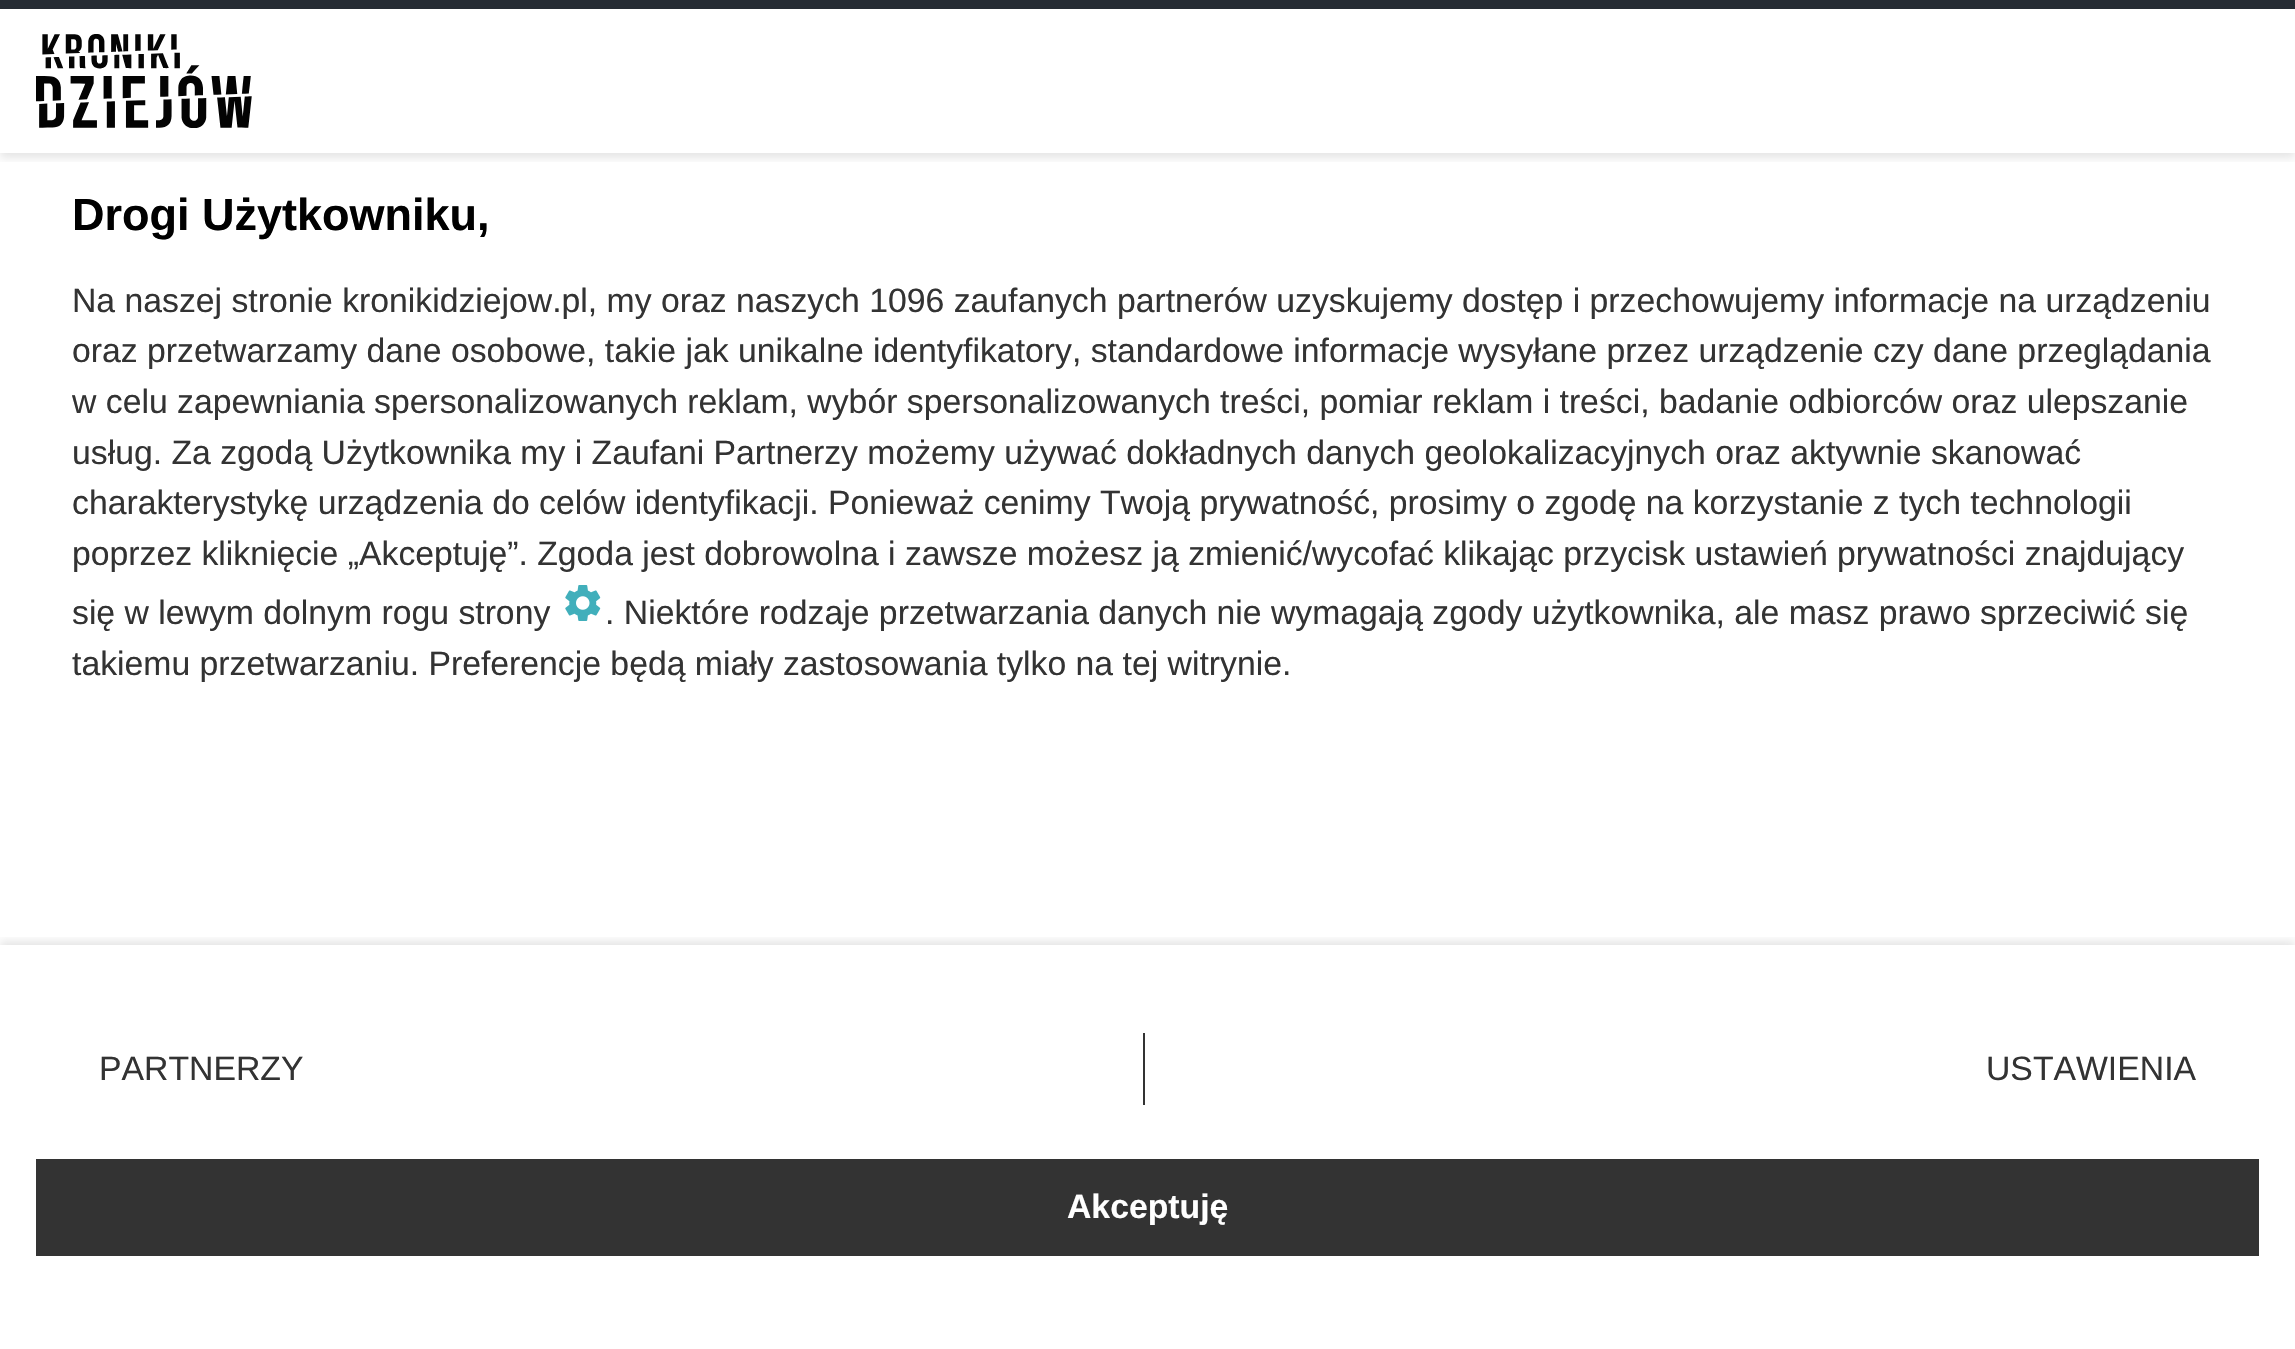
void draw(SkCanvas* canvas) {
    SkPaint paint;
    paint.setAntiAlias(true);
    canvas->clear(0xFFFFFFFF);
    {
        const SkColor colors[] = {0xFF262C34, 0xFF1F252E};
        const float stops[] = {0, 1};
        const SkPoint ends[] = {{1148, 0}, {1148, 135}};
        paint.setShader(SkGradientShader::MakeLinear(ends, colors, stops, 2, SkTileMode::kClamp));
        paint.setAlpha(255);
    }
    canvas->drawRect(SkRect::MakeXYWH(0, 0, 2295, 9), paint);
    canvas->save();
    canvas->clipRect(SkRect::MakeXYWH(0, 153, 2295, 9));
    paint.setShader(nullptr);
    paint.setColor(0x1A000000);
    paint.setMaskFilter(SkMaskFilter::MakeBlur(kNormal_SkBlurStyle, 4.5f));
    canvas->drawRect(SkRect::MakeXYWH(0, 14, 2295, 144), paint);
    paint.setMaskFilter(nullptr);
    canvas->restore();
    canvas->drawImageRect(SkImages::DeferredFromEncodedData(SkData::MakeFromFileName("img1.png")), SkRect::MakeXYWH(36, 34, 216, 94), SkSamplingOptions());
    SkFont font1(fontMgr->matchFamilyStyle("Liberation Sans", SkFontStyle::Bold()), 45);
    font1.setSubpixel(true);
    paint.setColor(0xFF000000);
    canvas->drawString("Drogi Użytkowniku,", 72, 230, font1, paint);
    SkFont font2(fontMgr->matchFamilyStyle("Liberation Sans", SkFontStyle::Normal()), 33.75f);
    font2.setSubpixel(true);
    paint.setColor(0xFF333333);
    canvas->drawString("Na naszej stronie kronikidziejow.pl, my oraz naszych 1096 zaufanych partnerów uzyskujemy dostęp i przechowujemy informacje na urządzeniu", 72, 312, font2, paint);
    canvas->drawString("oraz przetwarzamy dane osobowe, takie jak unikalne identyfikatory, standardowe informacje wysyłane przez urządzenie czy dane przeglądania", 72, 362, font2, paint);
    canvas->drawString("w celu zapewniania spersonalizowanych reklam, wybór spersonalizowanych treści, pomiar reklam i treści, badanie odbiorców oraz ulepszanie", 72, 413, font2, paint);
    canvas->drawString("usług. Za zgodą Użytkownika my i Zaufani Partnerzy możemy używać dokładnych danych geolokalizacyjnych oraz aktywnie skanować", 72, 464, font2, paint);
    canvas->drawString("charakterystykę urządzenia do celów identyfikacji. Ponieważ cenimy Twoją prywatność, prosimy o zgodę na korzystanie z tych technologii", 72, 514, font2, paint);
    canvas->drawString("poprzez kliknięcie „Akceptuję”. Zgoda jest dobrowolna i zawsze możesz ją zmienić/wycofać klikając przycisk ustawień prywatności znajdujący", 72, 565, font2, paint);
    canvas->drawString("się w lewym dolnym rogu strony", 72, 624, font2, paint);
    canvas->drawImageRect(SkImages::DeferredFromEncodedData(SkData::MakeFromFileName("img2.png")), SkRect::MakeXYWH(565, 585, 36, 36), SkSamplingOptions());
    canvas->drawString(". Niektóre rodzaje przetwarzania danych nie wymagają zgody użytkownika, ale masz prawo sprzeciwić się", 605, 624, font2, paint);
    canvas->drawString("takiemu przetwarzaniu. Preferencje będą miały zastosowania tylko na tej witrynie.", 72, 675, font2, paint);
    canvas->save();
    canvas->clipRect(SkRect::MakeXYWH(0, 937, 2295, 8));
    paint.setColor(0x1A000000);
    paint.setMaskFilter(SkMaskFilter::MakeBlur(kNormal_SkBlurStyle, 4.5f));
    canvas->drawRect(SkRect::MakeXYWH(0, 941, 2295, 364), paint);
    paint.setMaskFilter(nullptr);
    canvas->restore();
    paint.setColor(0xFF333333);
    canvas->drawString("PARTNERZY", 99, 1080, font2, paint);
    canvas->drawRect(SkRect::MakeXYWH(1143, 1033, 2, 72), paint);
    canvas->drawString("USTAWIENIA", 1986, 1080, font2, paint);
    canvas->drawRect(SkRect::MakeXYWH(36, 1159, 2223, 97), paint);
    SkFont font3(fontMgr->matchFamilyStyle("Liberation Sans", SkFontStyle::Bold()), 33.75f);
    font3.setSubpixel(true);
    paint.setColor(0xFFFFFFFF);
    canvas->drawString("Akceptuję", 1067, 1218, font3, paint);
}
